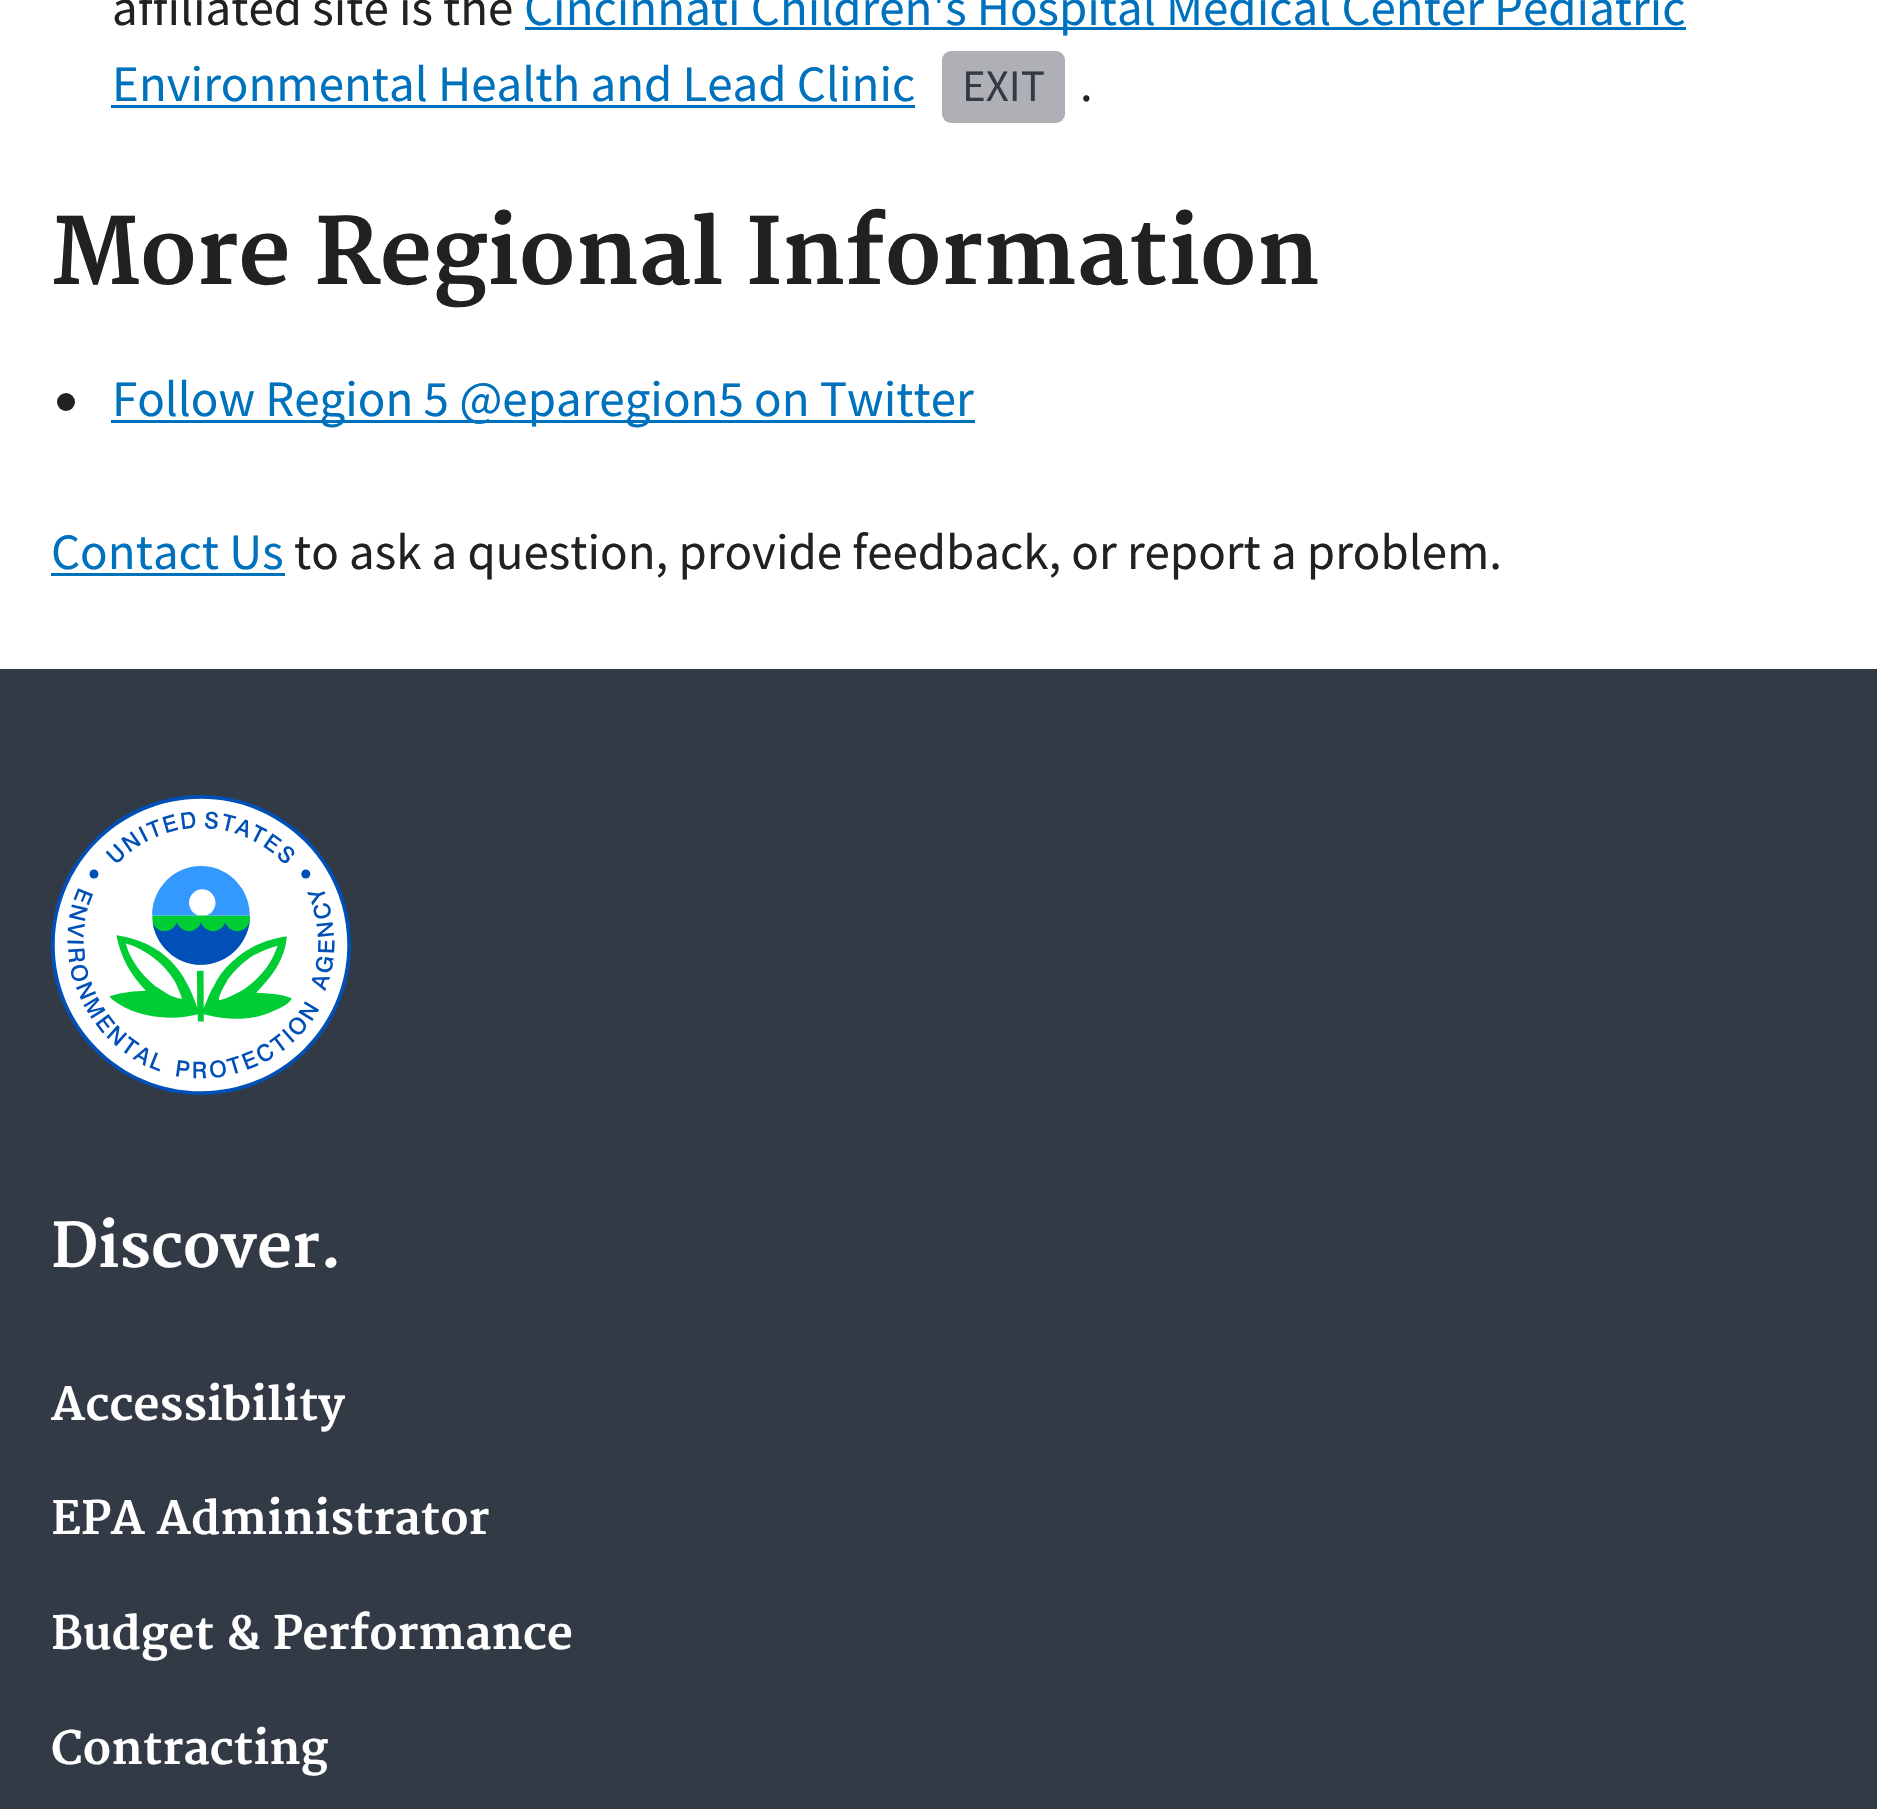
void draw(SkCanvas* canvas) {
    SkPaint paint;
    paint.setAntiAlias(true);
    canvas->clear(0xFFFFFFFF);
    SkFont font1(fontMgr->matchFamilyStyle("Source Sans Pro", SkFontStyle::Normal()), 51);
    font1.setSubpixel(true);
    paint.setColor(0xFF212121);
    canvas->drawString("affiliated site is the", 112, 25, font1, paint);
    paint.setColor(0xFF0071BC);
    canvas->drawRect(SkRect::MakeXYWH(525, 27, 1161, 3), paint);
    canvas->drawString("Cincinnati Children's Hospital Medical Center Pediatric", 524, 25, font1, paint);
    canvas->drawString("Environmental Health and Lead Clinic", 112, 101, font1, paint);
    canvas->drawRect(SkRect::MakeXYWH(111, 105, 804, 3), paint);
    paint.setColor(0xFFAEB0B5);
    canvas->drawRoundRect(SkRect::MakeXYWH(942, 51, 123, 72), 9, 9, paint);
    SkFont font2(fontMgr->matchFamilyStyle("Source Sans Pro", SkFontStyle::Normal()), 45);
    font2.setSubpixel(true);
    paint.setColor(0xFF323A45);
    canvas->drawString("EXIT", 962, 101, font2, paint);
    paint.setColor(0xFF212121);
    canvas->drawString(".", 1080, 101, font1, paint);
    SkFont font3(fontMgr->matchFamilyStyle("Merriweather", SkFontStyle::Bold()), 90);
    font3.setSubpixel(true);
    canvas->drawString("More Regional Information", 51, 284, font3, paint);
    canvas->drawCircle(66, 402, 9, paint);
    paint.setColor(0xFF0071BC);
    canvas->drawRect(SkRect::MakeXYWH(111, 420, 864, 3), paint);
    canvas->drawString("Follow Region 5 @eparegion5 on Twitter", 112, 416, font1, paint);
    canvas->drawString("Contact Us", 51, 569, font1, paint);
    canvas->drawRect(SkRect::MakeXYWH(51, 573, 234, 3), paint);
    paint.setColor(0xFF212121);
    canvas->drawString("to ask a question, provide feedback, or report a problem.", 294, 569, font1, paint);
    paint.setColor(0xFF323A45);
    canvas->drawRect(SkRect::MakeXYWH(0, 669, 1877, 1140), paint);
    canvas->drawImageRect(SkImages::DeferredFromEncodedData(SkData::MakeFromFileName("img1.png")), SkRect::MakeXYWH(51, 795, 300, 300), SkSamplingOptions());
    SkFont font4(fontMgr->matchFamilyStyle("Merriweather", SkFontStyle::Bold()), 60);
    font4.setSubpixel(true);
    paint.setColor(0xFFFFFFFF);
    canvas->drawString("Discover.", 51, 1267, font4, paint);
    SkFont font5(fontMgr->matchFamilyStyle("Merriweather", SkFontStyle::Bold()), 45);
    font5.setSubpixel(true);
    canvas->drawString("Accessibility", 51, 1420, font5, paint);
    canvas->drawString("EPA Administrator", 51, 1534, font5, paint);
    canvas->drawString("Budget & Performance", 51, 1649, font5, paint);
    canvas->drawString("Contracting", 51, 1764, font5, paint);
}
